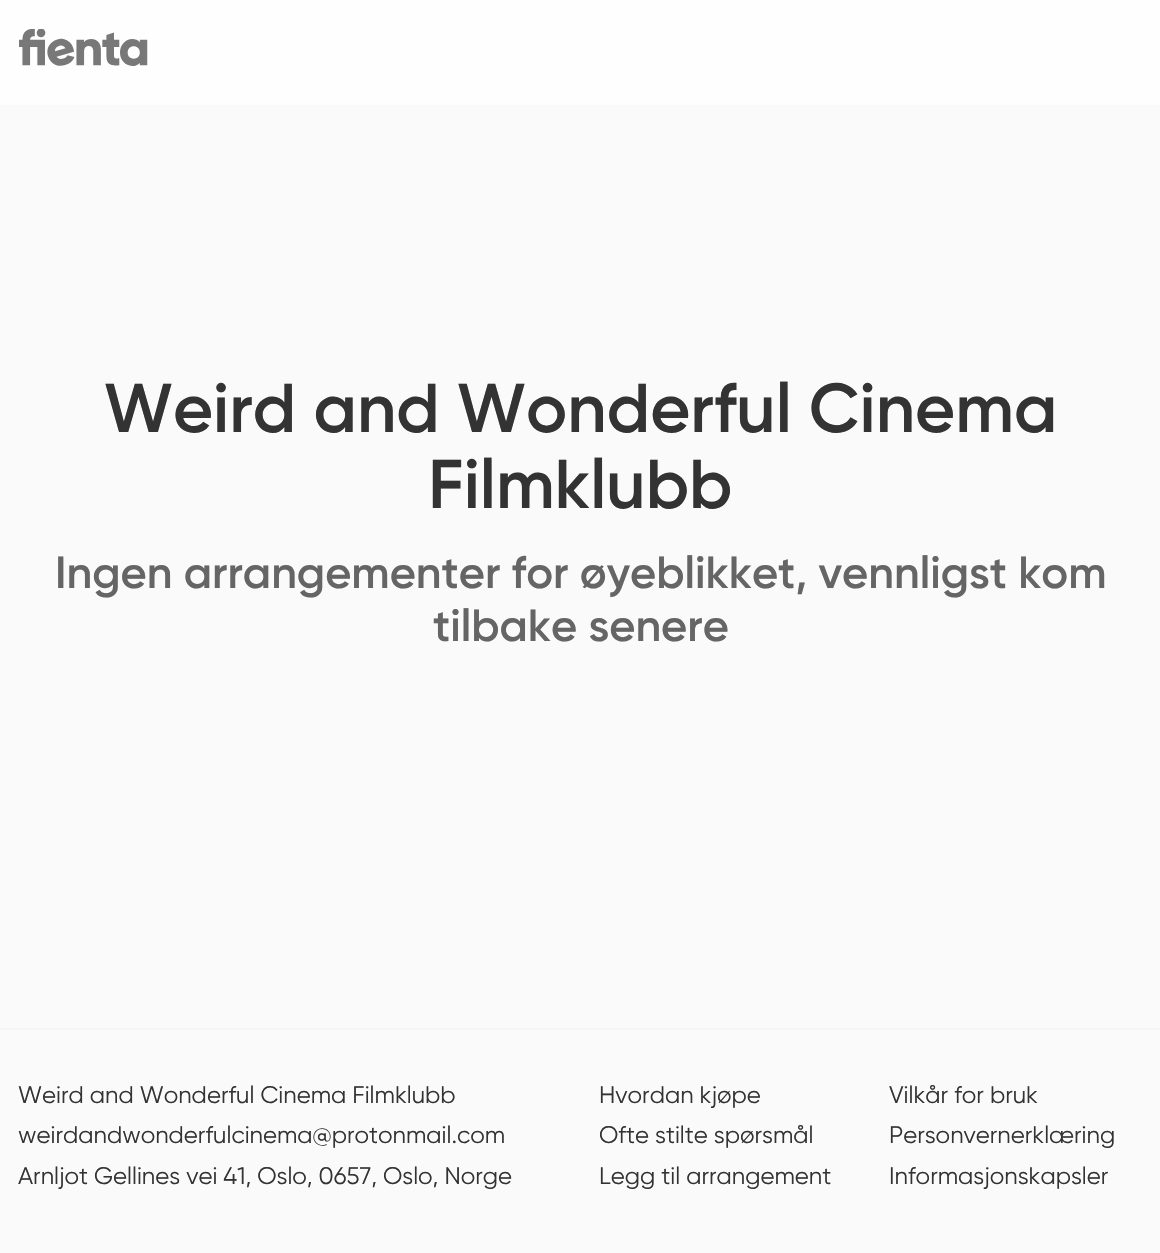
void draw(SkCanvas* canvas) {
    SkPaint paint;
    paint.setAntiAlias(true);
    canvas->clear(0xFFFAFAFA);
    paint.setColor(0xFFFEFEFE);
    canvas->drawRect(SkRect::MakeXYWH(0, 0, 1160, 105), paint);
    canvas->drawImageRect(SkImages::DeferredFromEncodedData(SkData::MakeFromFileName("img1.png")), SkRect::MakeXYWH(19, 29, 129, 37), SkSamplingOptions());
    SkFont font1(fontMgr->matchFamilyStyle("Gilroy", SkFontStyle(600, SkFontStyle::kNormal_Width, SkFontStyle::kUpright_Slant)), 69);
    font1.setSubpixel(true);
    paint.setColor(0xFF333333);
    canvas->drawString("Weird and Wonderful Cinema", 104, 432, font1, paint);
    canvas->drawString("Filmklubb", 428, 508, font1, paint);
    SkFont font2(fontMgr->matchFamilyStyle("Gilroy", SkFontStyle(600, SkFontStyle::kNormal_Width, SkFontStyle::kUpright_Slant)), 45);
    font2.setSubpixel(true);
    paint.setColor(0xFF656565);
    canvas->drawString("Ingen arrangementer for øyeblikket, vennligst kom", 55, 588, font2, paint);
    canvas->drawString("tilbake senere", 433, 641, font2, paint);
    paint.setColor(0xFFF5F5F5);
    canvas->drawRect(SkRect::MakeXYWH(0, 1028, 1160, 2), paint);
    SkFont font3(fontMgr->matchFamilyStyle("Gilroy", SkFontStyle::Normal()), 24);
    font3.setSubpixel(true);
    paint.setColor(0xFF333333);
    canvas->drawString("Weird and Wonderful Cinema Filmklubb", 18, 1103, font3, paint);
    canvas->drawString("weirdandwonderfulcinema@protonmail.com", 18, 1143, font3, paint);
    canvas->drawString("Arnljot Gellines vei 41, Oslo, 0657, Oslo, Norge", 18, 1184, font3, paint);
    canvas->drawString("Hvordan kjøpe", 599, 1103, font3, paint);
    canvas->drawString("Ofte stilte spørsmål", 599, 1143, font3, paint);
    canvas->drawString("Legg til arrangement", 599, 1184, font3, paint);
    canvas->drawString("Vilkår for bruk", 889, 1103, font3, paint);
    canvas->drawString("Personvernerklæring", 889, 1143, font3, paint);
    canvas->drawString("Informasjonskapsler", 889, 1184, font3, paint);
}
